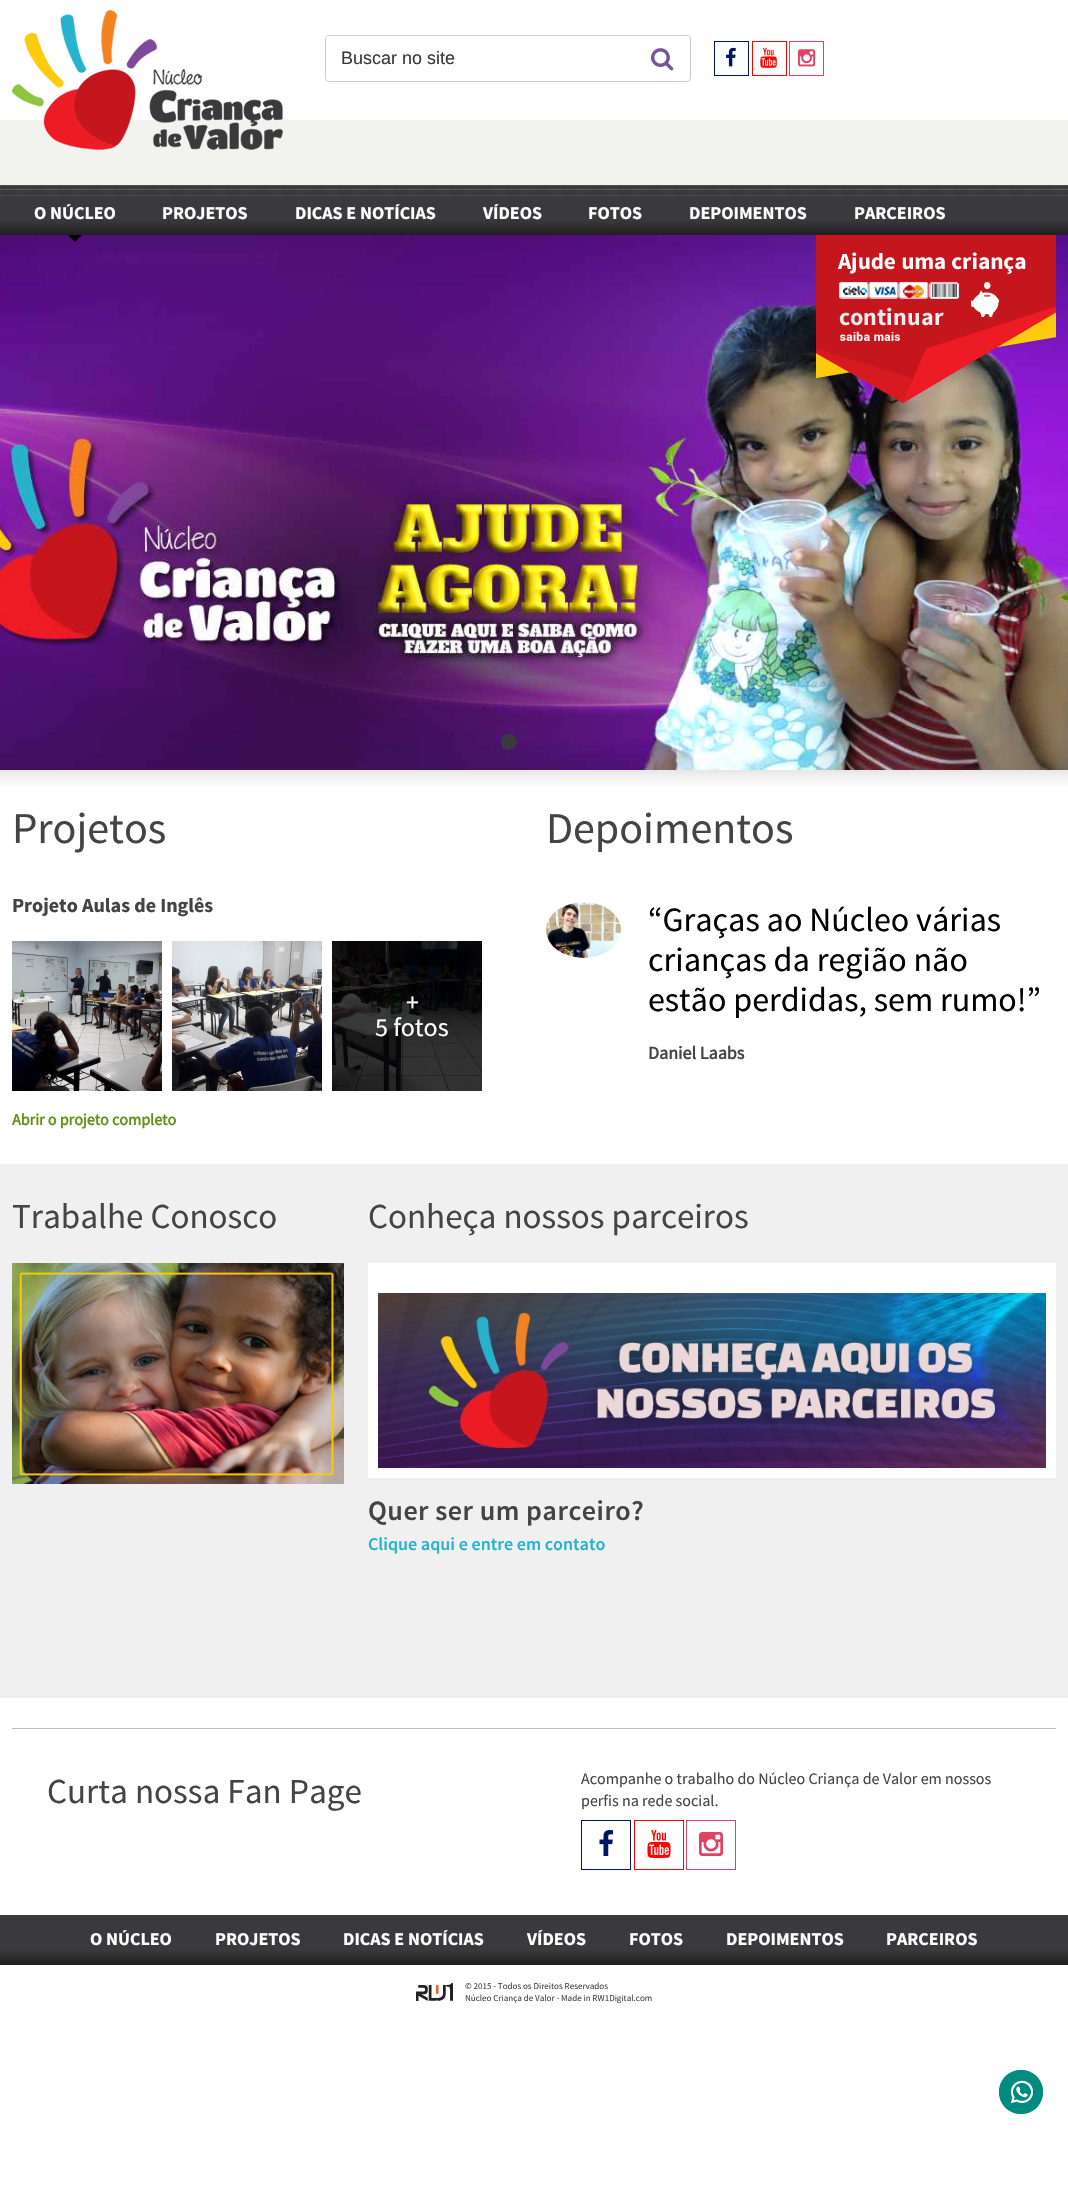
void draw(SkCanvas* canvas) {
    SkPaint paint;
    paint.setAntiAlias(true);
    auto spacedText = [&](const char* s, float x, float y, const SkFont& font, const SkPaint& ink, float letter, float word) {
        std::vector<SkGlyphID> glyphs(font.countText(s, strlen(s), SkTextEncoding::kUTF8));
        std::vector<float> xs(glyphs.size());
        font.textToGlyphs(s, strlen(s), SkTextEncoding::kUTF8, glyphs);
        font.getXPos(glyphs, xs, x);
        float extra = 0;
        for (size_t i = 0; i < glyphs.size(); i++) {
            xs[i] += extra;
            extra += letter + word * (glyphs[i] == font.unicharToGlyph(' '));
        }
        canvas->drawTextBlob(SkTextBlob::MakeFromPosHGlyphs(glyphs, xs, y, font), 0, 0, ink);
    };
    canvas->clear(0xFFFFFFFF);
    paint.setColor(0xFFF2F2EF);
    canvas->drawRect(SkRect::MakeXYWH(0, 120, 1068, 65), paint);
    canvas->drawImageRect(SkImages::DeferredFromEncodedData(SkData::MakeFromFileName("img1.png")), SkRect::MakeXYWH(12, 10, 271, 140), SkSamplingOptions());
    paint.setStyle(SkPaint::kStroke_Style);
    paint.setStrokeWidth(1);
    paint.setColor(0xFFCDCDCD);
    canvas->drawRoundRect(SkRect::MakeXYWH(325.5f, 35.5f, 365, 46), 3.5f, 3.5f, paint);
    paint.setStyle(SkPaint::kFill_Style);
    paint.setColor(0xFFFFFFFF);
    canvas->drawPath(SkPathBuilder().moveTo(329, 36).lineTo(635, 36).lineTo(635, 81).lineTo(329, 81).cubicTo(327.5f, 81, 326, 79.5f, 326, 78).lineTo(326, 39).cubicTo(326, 37.5f, 327.5f, 36, 329, 36).close().detach(), paint);
    SkFont font1(fontMgr->matchFamilyStyle("Liberation Sans", SkFontStyle::Normal()), 18);
    font1.setSubpixel(true);
    paint.setColor(0xFF39393B);
    canvas->drawString("Buscar no site", 341, 64, font1, paint);
    canvas->drawImageRect(SkImages::DeferredFromEncodedData(SkData::MakeFromFileName("img2.png")), SkRect::MakeXYWH(651, 48, 23, 23), SkSamplingOptions());
    paint.setStyle(SkPaint::kStroke_Style);
    paint.setColor(0xFF001664);
    canvas->drawRect(SkRect::MakeXYWH(714.5f, 41.5f, 34, 34), paint);
    canvas->drawImageRect(SkImages::DeferredFromEncodedData(SkData::MakeFromFileName("img3.png")), SkRect::MakeXYWH(726, 47, 10, 20), SkSamplingOptions());
    paint.setColor(0xFFFF0000);
    canvas->drawRect(SkRect::MakeXYWH(752.5f, 41.5f, 34, 34), paint);
    canvas->drawImageRect(SkImages::DeferredFromEncodedData(SkData::MakeFromFileName("img4.png")), SkRect::MakeXYWH(760, 47, 17, 21), SkSamplingOptions());
    paint.setColor(0xFFDF4363);
    canvas->drawRect(SkRect::MakeXYWH(789.5f, 41.5f, 34, 34), paint);
    canvas->drawImageRect(SkImages::DeferredFromEncodedData(SkData::MakeFromFileName("img5.png")), SkRect::MakeXYWH(798, 49, 18, 18), SkSamplingOptions());
    canvas->drawImageRect(SkImages::DeferredFromEncodedData(SkData::MakeFromFileName("img8.png")), SkRect::MakeXYWH(0, 235, 1068, 535), SkSamplingOptions());
    canvas->drawImageRect(SkImages::DeferredFromEncodedData(SkData::MakeFromFileName("img6.png")), SkRect::MakeXYWH(816, 235, 240, 168), SkSamplingOptions());
    canvas->drawImageRect(SkImages::DeferredFromEncodedData(SkData::MakeFromFileName("img7.png")), SkRect::MakeXYWH(0, 185, 1068, 50), SkSamplingOptions());
    SkFont font2(fontMgr->matchFamilyStyle("Source Sans Pro", SkFontStyle::Bold()), 18);
    font2.setSubpixel(true);
    paint.setStyle(SkPaint::kFill_Style);
    paint.setColor(0xFFFFFFFF);
    canvas->drawString("O NÚCLEO", 34, 219, font2, paint);
    paint.setColor(0xFF000000);
    canvas->drawPath(SkPathBuilder().moveTo(68, 235).lineTo(82, 235).lineTo(75, 242).close().detach(), paint);
    paint.setColor(0xFFFFFFFF);
    canvas->drawString("PROJETOS", 162, 219, font2, paint);
    canvas->drawString("DICAS E NOTÍCIAS", 295, 219, font2, paint);
    canvas->drawString("VÍDEOS", 483, 219, font2, paint);
    canvas->drawString("FOTOS", 588, 219, font2, paint);
    canvas->drawString("DEPOIMENTOS", 689, 219, font2, paint);
    canvas->drawString("PARCEIROS", 854, 219, font2, paint);
    paint.setColor(0xFF3A3A3C);
    canvas->drawCircle(509, 742, 6.5f, paint);
    paint.setStyle(SkPaint::kStroke_Style);
    paint.setStrokeWidth(3);
    canvas->drawCircle(509, 742, 6.5f, paint);
    canvas->drawImageRect(SkImages::DeferredFromEncodedData(SkData::MakeFromFileName("img9.png")), SkRect::MakeXYWH(0, 770, 1068, 16), SkSamplingOptions());
    SkFont font3(fontMgr->matchFamilyStyle("Source Sans Pro", SkFontStyle::Normal()), 44);
    font3.setSubpixel(true);
    paint.setStyle(SkPaint::kFill_Style);
    paint.setColor(0xFF444444);
    canvas->drawString("Projetos", 12, 843, font3, paint);
    SkFont font4(fontMgr->matchFamilyStyle("Source Sans Pro", SkFontStyle::Bold()), 20);
    font4.setSubpixel(true);
    canvas->drawString("Projeto Aulas de Inglês", 12, 912, font4, paint);
    canvas->drawImageRect(SkImages::DeferredFromEncodedData(SkData::MakeFromFileName("img10.png")), SkRect::MakeXYWH(12, 941, 150, 150), SkSamplingOptions());
    canvas->drawImageRect(SkImages::DeferredFromEncodedData(SkData::MakeFromFileName("img11.png")), SkRect::MakeXYWH(172, 941, 150, 150), SkSamplingOptions());
    canvas->drawImageRect(SkImages::DeferredFromEncodedData(SkData::MakeFromFileName("img12.png")), SkRect::MakeXYWH(332, 941, 150, 150), SkSamplingOptions());
    SkFont font5(fontMgr->matchFamilyStyle("Source Sans Pro", SkFontStyle::Normal()), 26);
    font5.setSubpixel(true);
    paint.setColor(0xFFFFFFFF);
    canvas->drawString("+", 406, 1011, font5, paint);
    canvas->drawString("5 fotos", 375, 1036, font5, paint);
    SkFont font6(fontMgr->matchFamilyStyle("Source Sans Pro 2", SkFontStyle::Bold()), 16);
    font6.setSubpixel(true);
    paint.setColor(0xFF659017);
    canvas->drawString("Abrir o projeto completo", 12, 1125, font6, paint);
    paint.setColor(0xFF444444);
    canvas->drawString("Depoimentos", 546, 843, font3, paint);
    canvas->drawImageRect(SkImages::DeferredFromEncodedData(SkData::MakeFromFileName("img13.png")), SkRect::MakeXYWH(546, 902, 75, 56), SkSamplingOptions());
    SkFont font7(fontMgr->matchFamilyStyle("Source Sans Pro", SkFontStyle::Normal()), 34);
    font7.setSubpixel(true);
    paint.setColor(0xFF000000);
    canvas->drawString("“Graças ao Núcleo várias", 648, 931, font7, paint);
    canvas->drawString("crianças da região não", 648, 971, font7, paint);
    canvas->drawString("estão perdidas, sem rumo!”", 648, 1011, font7, paint);
    SkFont font8(fontMgr->matchFamilyStyle("Source Sans Pro 2", SkFontStyle::Bold()), 18);
    font8.setSubpixel(true);
    paint.setColor(0xFF444444);
    canvas->drawString("Daniel Laabs", 648, 1059, font8, paint);
    paint.setColor(0xFFF0F0F0);
    canvas->drawRect(SkRect::MakeXYWH(0, 1164, 1068, 534), paint);
    SkFont font9(fontMgr->matchFamilyStyle("Source Sans Pro", SkFontStyle::Normal()), 35);
    font9.setSubpixel(true);
    paint.setColor(0xFF444444);
    canvas->drawString("Trabalhe Conosco", 12, 1228, font9, paint);
    canvas->drawImageRect(SkImages::DeferredFromEncodedData(SkData::MakeFromFileName("img14.png")), SkRect::MakeXYWH(12, 1263, 332, 221), SkSamplingOptions());
    canvas->drawString("Conheça nossos parceiros", 368, 1228, font9, paint);
    paint.setColor(0xFFFFFFFF);
    canvas->drawRect(SkRect::MakeXYWH(368, 1263, 688, 215), paint);
    canvas->drawImageRect(SkImages::DeferredFromEncodedData(SkData::MakeFromFileName("img15.png")), SkRect::MakeXYWH(378, 1293, 668, 175), SkSamplingOptions());
    SkFont font10(fontMgr->matchFamilyStyle("Source Sans Pro", SkFontStyle(600, SkFontStyle::kNormal_Width, SkFontStyle::kUpright_Slant)), 28);
    font10.setSubpixel(true);
    paint.setColor(0xFF444444);
    spacedText("Quer ser um parceiro?", 368, 1520, font10, paint, 0.5f, 0);
    SkFont font11(fontMgr->matchFamilyStyle("Source Sans Pro", SkFontStyle(600, SkFontStyle::kNormal_Width, SkFontStyle::kUpright_Slant)), 18);
    font11.setSubpixel(true);
    paint.setColor(0xFF27B2CE);
    canvas->drawString("Clique aqui e entre em contato", 368, 1550, font11, paint);
    paint.setColor(0xFFBBBBBB);
    canvas->drawRect(SkRect::MakeXYWH(12, 1728, 1044, 1), paint);
    paint.setColor(0xFF444444);
    canvas->drawString("Curta nossa Fan Page", 47, 1803, font9, paint);
    SkFont font12(fontMgr->matchFamilyStyle("Source Sans Pro", SkFontStyle::Normal()), 16);
    font12.setSubpixel(true);
    canvas->drawString("Acompanhe o trabalho do Núcleo Criança de Valor em nossos", 581, 1784, font12, paint);
    canvas->drawString("perfis na rede social.", 581, 1806, font12, paint);
    paint.setStyle(SkPaint::kStroke_Style);
    paint.setStrokeWidth(1);
    paint.setColor(0xFF001664);
    canvas->drawRect(SkRect::MakeXYWH(581.5f, 1820.5f, 49, 49), paint);
    canvas->drawImageRect(SkImages::DeferredFromEncodedData(SkData::MakeFromFileName("img16.png")), SkRect::MakeXYWH(599, 1830, 14, 26), SkSamplingOptions());
    paint.setColor(0xFFFF0000);
    canvas->drawRect(SkRect::MakeXYWH(634.5f, 1820.5f, 49, 49), paint);
    canvas->drawImageRect(SkImages::DeferredFromEncodedData(SkData::MakeFromFileName("img17.png")), SkRect::MakeXYWH(647, 1830, 24, 28), SkSamplingOptions());
    paint.setColor(0xFFDF4363);
    canvas->drawRect(SkRect::MakeXYWH(686.5f, 1820.5f, 49, 49), paint);
    canvas->drawImageRect(SkImages::DeferredFromEncodedData(SkData::MakeFromFileName("img18.png")), SkRect::MakeXYWH(699, 1832, 24, 24), SkSamplingOptions());
    canvas->drawImageRect(SkImages::DeferredFromEncodedData(SkData::MakeFromFileName("img19.png")), SkRect::MakeXYWH(0, 1915, 1068, 50), SkSamplingOptions());
    paint.setStyle(SkPaint::kFill_Style);
    paint.setColor(0xFFFFFFFF);
    canvas->drawString("O NÚCLEO", 90, 1945, font2, paint);
    canvas->drawString("PROJETOS", 215, 1945, font2, paint);
    canvas->drawString("DICAS E NOTÍCIAS", 343, 1945, font2, paint);
    canvas->drawString("VÍDEOS", 527, 1945, font2, paint);
    canvas->drawString("FOTOS", 629, 1945, font2, paint);
    canvas->drawString("DEPOIMENTOS", 726, 1945, font2, paint);
    canvas->drawString("PARCEIROS", 886, 1945, font2, paint);
    canvas->drawImageRect(SkImages::DeferredFromEncodedData(SkData::MakeFromFileName("img20.png")), SkRect::MakeXYWH(416, 1983, 37, 18), SkSamplingOptions());
    SkFont font13(fontMgr->matchFamilyStyle("Source Sans Pro", SkFontStyle::Normal()), 9);
    font13.setSubpixel(true);
    paint.setColor(0xFF444444);
    canvas->drawString("© 2015 - Todos os Direitos Reservados", 465, 1989, font13, paint);
    canvas->drawString("Núcleo Criança de Valor - Made in RW1Digital.com", 465, 2001, font13, paint);
    canvas->drawImageRect(SkImages::DeferredFromEncodedData(SkData::MakeFromFileName("img21.png")), SkRect::MakeXYWH(999, 2070, 44, 44), SkSamplingOptions());
}
